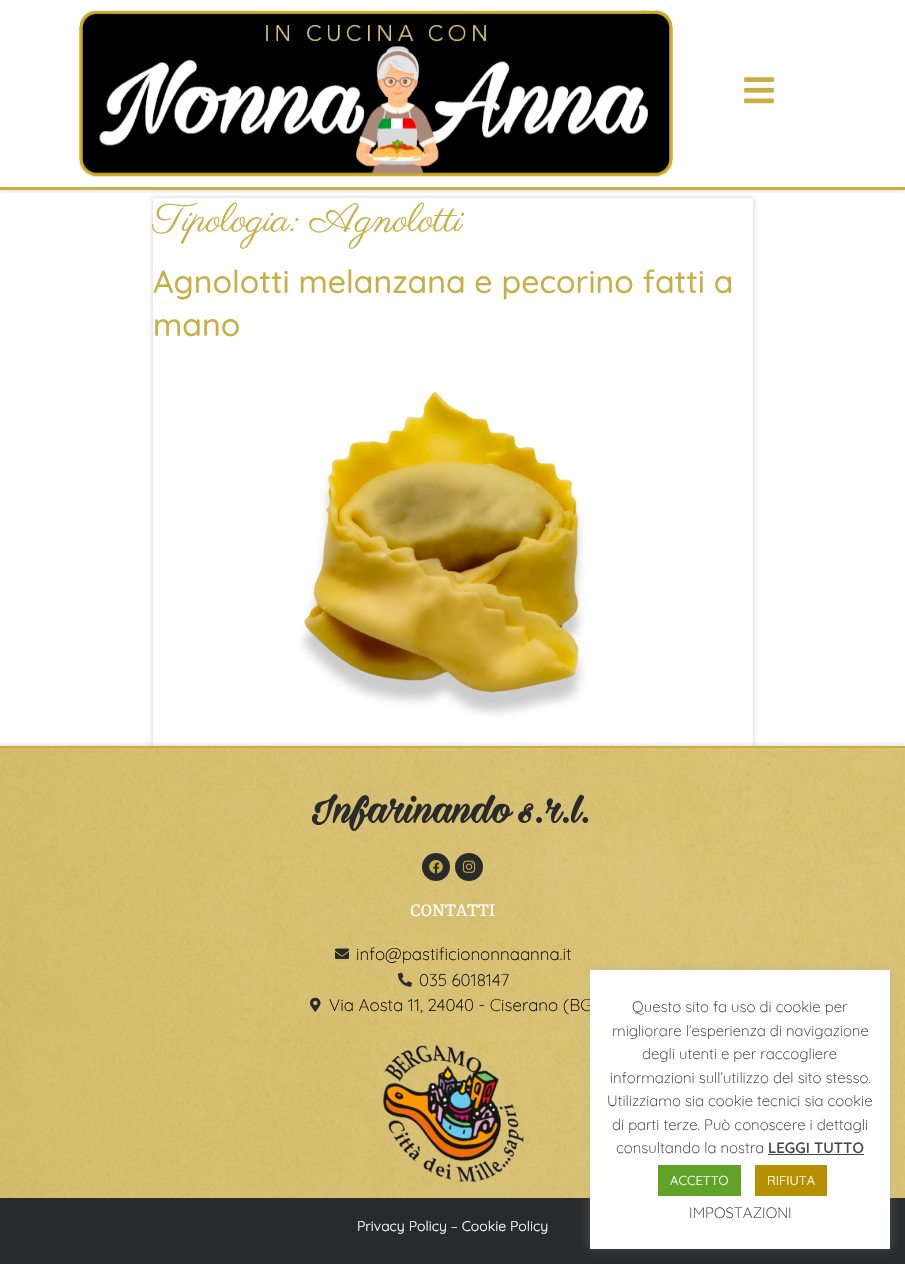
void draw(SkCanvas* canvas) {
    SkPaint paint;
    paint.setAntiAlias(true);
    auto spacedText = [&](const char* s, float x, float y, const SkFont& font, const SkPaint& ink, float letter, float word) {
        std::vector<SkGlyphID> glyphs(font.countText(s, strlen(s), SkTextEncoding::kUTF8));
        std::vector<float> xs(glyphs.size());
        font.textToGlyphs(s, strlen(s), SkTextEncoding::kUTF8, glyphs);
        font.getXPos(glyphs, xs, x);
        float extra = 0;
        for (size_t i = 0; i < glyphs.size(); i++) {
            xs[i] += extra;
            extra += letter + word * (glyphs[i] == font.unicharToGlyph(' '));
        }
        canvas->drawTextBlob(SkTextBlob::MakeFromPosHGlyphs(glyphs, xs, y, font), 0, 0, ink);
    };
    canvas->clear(0xFFFFFFFF);
    canvas->save();
    canvas->clipRect(SkRect::MakeXYWH(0, 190, 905, 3));
    paint.setColor(0x33000000);
    paint.setMaskFilter(SkMaskFilter::MakeBlur(kNormal_SkBlurStyle, 2.5f));
    canvas->drawRect(SkRect::MakeXYWH(0, 0, 905, 190), paint);
    paint.setMaskFilter(nullptr);
    canvas->restore();
    canvas->save();
    canvas->clipPath(SkPathBuilder(SkPathFillType::kEvenOdd).moveTo(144, 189).lineTo(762, 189).lineTo(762, 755).lineTo(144, 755).close().moveTo(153, 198).lineTo(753, 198).lineTo(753, 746).lineTo(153, 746).close().detach(), true);
    paint.setMaskFilter(SkMaskFilter::MakeBlur(kNormal_SkBlurStyle, 2.5f));
    canvas->drawRect(SkRect::MakeXYWH(153, 198, 600, 548), paint);
    paint.setMaskFilter(nullptr);
    canvas->restore();
    paint.setColor(0xFFC9AE43);
    canvas->drawRect(SkRect::MakeXYWH(0, 187, 905, 3), paint);
    canvas->drawImageRect(SkImages::DeferredFromEncodedData(SkData::MakeFromFileName("img1.png")), SkRect::MakeXYWH(79, 10, 594, 167), SkSamplingOptions());
    canvas->drawImageRect(SkImages::DeferredFromEncodedData(SkData::MakeFromFileName("img2.png")), SkRect::MakeXYWH(744, 77, 30, 27), SkSamplingOptions());
    SkFont font1(fontMgr->matchFamilyStyle("Parisienne", SkFontStyle::Normal()), 40);
    font1.setSubpixel(true);
    canvas->drawString("Tipologia: Agnolotti", 153, 231, font1, paint);
    SkFont font2(fontMgr->matchFamilyStyle("Quicksand", SkFontStyle(500, SkFontStyle::kNormal_Width, SkFontStyle::kUpright_Slant)), 32);
    font2.setSubpixel(true);
    canvas->drawString("Agnolotti melanzana e pecorino fatti a", 153, 293, font2, paint);
    canvas->drawString("mano", 153, 336, font2, paint);
    canvas->drawImageRect(SkImages::DeferredFromEncodedData(SkData::MakeFromFileName("img3.png")), SkRect::MakeXYWH(299, 391, 286, 326), SkSamplingOptions());
    paint.setColor(0x33000000);
    paint.setMaskFilter(SkMaskFilter::MakeBlur(kNormal_SkBlurStyle, 2.5f));
    canvas->drawRect(SkRect::MakeXYWH(0, 746, 905, 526), paint);
    paint.setMaskFilter(nullptr);
    canvas->drawImageRect(SkImages::DeferredFromEncodedData(SkData::MakeFromFileName("img4.png")), SkRect::MakeXYWH(0, 748, 905, 450), SkSamplingOptions());
    paint.setColor(0xFFC9AE43);
    canvas->drawRect(SkRect::MakeXYWH(0, 746, 905, 2), paint);
    SkFont font3(fontMgr->matchFamilyStyle("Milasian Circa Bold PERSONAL", SkFontStyle::Bold()), 45);
    font3.setSubpixel(true);
    paint.setColor(0xFF292A2B);
    spacedText("Infarinando s.r.l.", 312, 822, font3, paint, 0, -2);
    canvas->drawCircle(436, 867, 14, paint);
    canvas->drawImageRect(SkImages::DeferredFromEncodedData(SkData::MakeFromFileName("img5.png")), SkRect::MakeXYWH(429, 860, 14, 14), SkSamplingOptions());
    canvas->drawCircle(469, 867, 14, paint);
    canvas->drawImageRect(SkImages::DeferredFromEncodedData(SkData::MakeFromFileName("img6.png")), SkRect::MakeXYWH(462, 860, 14, 13), SkSamplingOptions());
    SkFont font4(fontMgr->matchFamilyStyle("Rasa", SkFontStyle::Normal()), 20);
    font4.setSubpixel(true);
    paint.setColor(0xFFFFFFFF);
    canvas->drawString("CONTATTI", 410, 916, font4, paint);
    canvas->drawImageRect(SkImages::DeferredFromEncodedData(SkData::MakeFromFileName("img7.png")), SkRect::MakeXYWH(335, 948, 14, 11), SkSamplingOptions());
    SkFont font5(fontMgr->matchFamilyStyle("Quicksand", SkFontStyle(300, SkFontStyle::kNormal_Width, SkFontStyle::kUpright_Slant)), 17);
    font5.setSubpixel(true);
    paint.setColor(0xFF000000);
    canvas->drawString("info@pastificiononnaanna.it", 356, 960, font5, paint);
    canvas->drawImageRect(SkImages::DeferredFromEncodedData(SkData::MakeFromFileName("img8.png")), SkRect::MakeXYWH(398, 972, 14, 15), SkSamplingOptions());
    canvas->drawString("035 6018147", 419, 986, font5, paint);
    canvas->drawImageRect(SkImages::DeferredFromEncodedData(SkData::MakeFromFileName("img9.png")), SkRect::MakeXYWH(310, 997, 11, 15), SkSamplingOptions());
    canvas->drawString("Via Aosta 11, 24040 - Ciserano (BG", 329, 1011, font5, paint);
    canvas->drawImageRect(SkImages::DeferredFromEncodedData(SkData::MakeFromFileName("img10.png")), SkRect::MakeXYWH(382, 1044, 142, 138), SkSamplingOptions());
    paint.setColor(0xFF292A2B);
    canvas->drawRect(SkRect::MakeXYWH(0, 1198, 905, 66), paint);
    SkFont font6(fontMgr->matchFamilyStyle("Quicksand", SkFontStyle::Normal()), 14);
    font6.setSubpixel(true);
    paint.setColor(0xFFFFFFFF);
    canvas->drawString("Privacy Policy – Cookie Policy", 357, 1231, font6, paint);
    paint.setColor(0x4DACABAB);
    paint.setMaskFilter(SkMaskFilter::MakeBlur(kNormal_SkBlurStyle, 5));
    canvas->drawRect(SkRect::MakeXYWH(590, 969, 300, 279), paint);
    paint.setMaskFilter(nullptr);
    paint.setColor(0xFFFFFFFF);
    canvas->drawRect(SkRect::MakeXYWH(590, 970, 300, 279), paint);
    SkFont font7(fontMgr->matchFamilyStyle("Quicksand", SkFontStyle(300, SkFontStyle::kNormal_Width, SkFontStyle::kUpright_Slant)), 15);
    font7.setSubpixel(true);
    paint.setColor(0xFF333333);
    canvas->drawString("Questo sito fa uso di cookie per", 632, 1012, font7, paint);
    canvas->drawString("migliorare l’esperienza di navigazione", 612, 1036, font7, paint);
    canvas->drawString("degli utenti e per raccogliere", 642, 1059, font7, paint);
    canvas->drawString("informazioni sull’utilizzo del sito stesso.", 610, 1083, font7, paint);
    canvas->drawString("Utilizziamo sia cookie tecnici sia cookie", 607, 1106, font7, paint);
    canvas->drawString("di parti terze. Può conoscere i dettagli", 612, 1130, font7, paint);
    canvas->drawString("consultando la nostra", 616, 1153, font7, paint);
    SkFont font8(fontMgr->matchFamilyStyle("Quicksand", SkFontStyle(600, SkFontStyle::kNormal_Width, SkFontStyle::kUpright_Slant)), 15);
    font8.setSubpixel(true);
    paint.setColor(0xFF444444);
    canvas->drawString("LEGGI TUTTO", 768, 1153, font8, paint);
    canvas->drawRect(SkRect::MakeXYWH(768, 1154, 96, 1), paint);
    paint.setColor(0xFF61A229);
    canvas->drawRect(SkRect::MakeXYWH(658, 1165, 83, 31), paint);
    SkFont font9(fontMgr->matchFamilyStyle("Quicksand", SkFontStyle::Normal()), 13);
    font9.setSubpixel(true);
    paint.setColor(0xFFFFFFFF);
    canvas->drawString("ACCETTO", 670, 1185, font9, paint);
    paint.setColor(0xFFB59000);
    canvas->drawRect(SkRect::MakeXYWH(755, 1165, 72, 31), paint);
    paint.setColor(0xFFFFFFFF);
    canvas->drawString("RIFIUTA", 767, 1185, font9, paint);
    paint.setColor(0xFF333333);
    canvas->drawString("IMPOSTAZIONI", 689, 1218, font7, paint);
}
